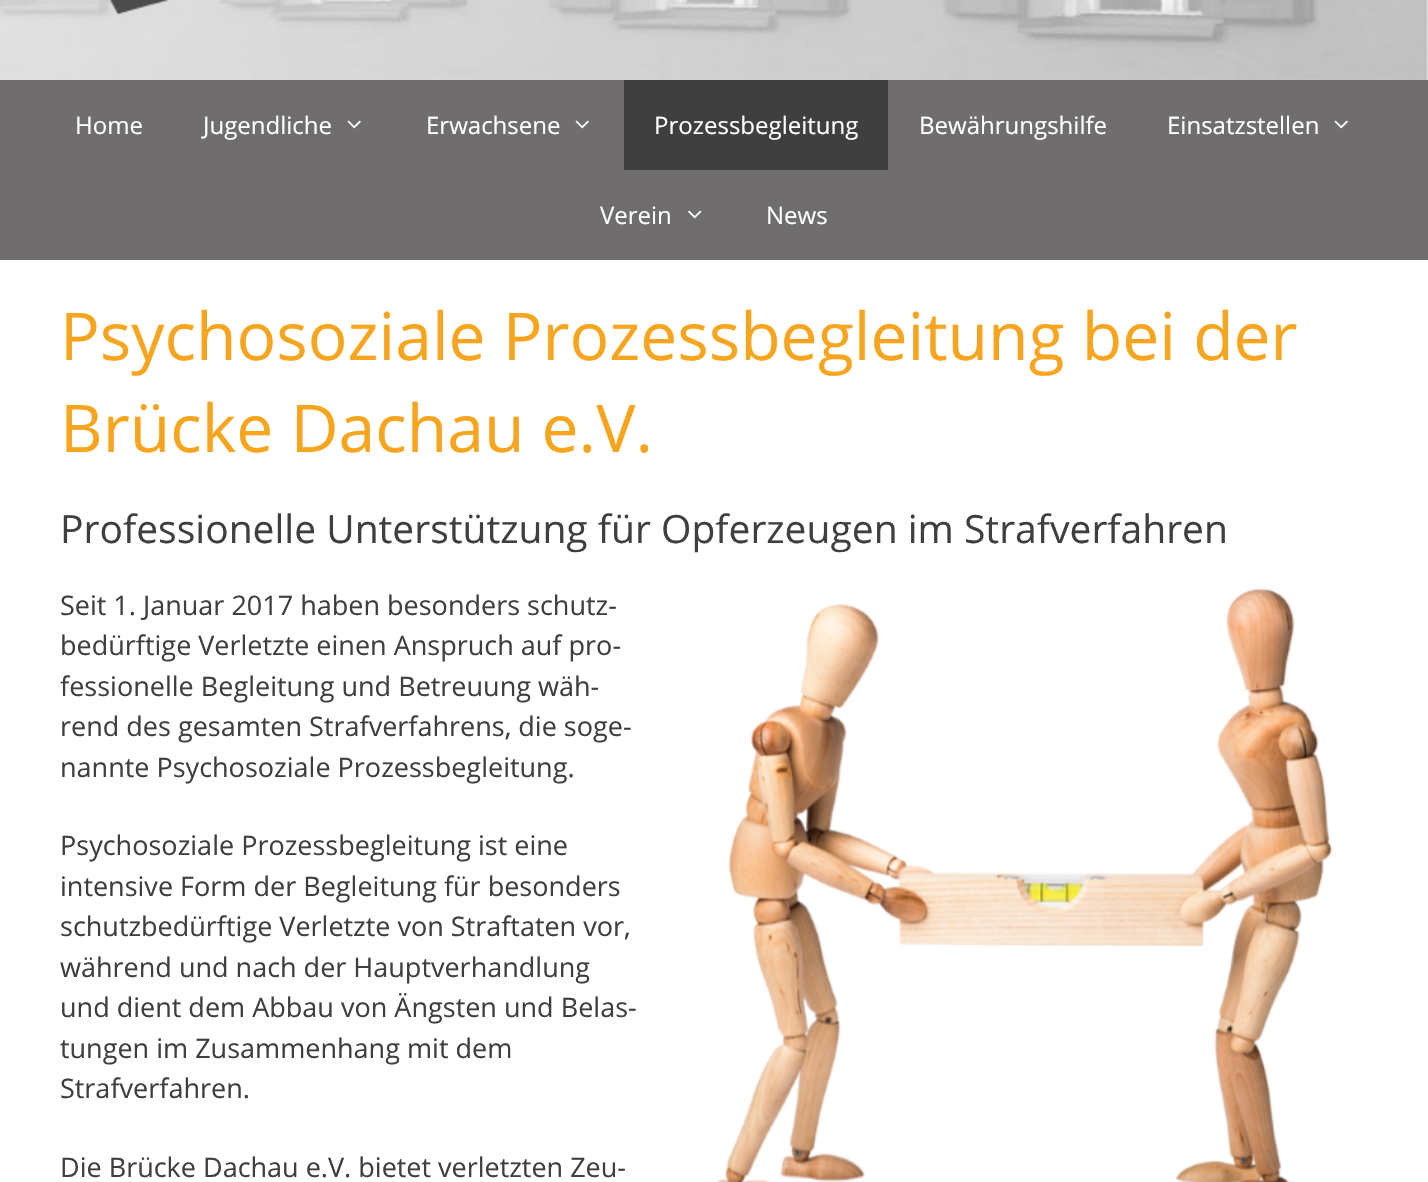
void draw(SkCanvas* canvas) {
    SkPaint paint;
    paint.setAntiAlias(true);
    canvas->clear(0xFFFFFFFF);
    canvas->drawImageRect(SkImages::DeferredFromEncodedData(SkData::MakeFromFileName("img1.png")), SkRect::MakeXYWH(0, 0, 1428, 80), SkSamplingOptions());
    canvas->drawImageRect(SkImages::DeferredFromEncodedData(SkData::MakeFromFileName("img2.png")), SkRect::MakeXYWH(109, 0, 60, 15), SkSamplingOptions());
    paint.setColor(0xFF6F6D6E);
    canvas->drawRect(SkRect::MakeXYWH(0, 80, 1428, 180), paint);
    SkFont font1(fontMgr->matchFamilyStyle("Open Sans", SkFontStyle::Normal()), 24);
    font1.setSubpixel(true);
    paint.setColor(0xFFFFFFFF);
    canvas->drawString("Home", 75, 134, font1, paint);
    canvas->drawString("Jugendliche", 203, 134, font1, paint);
    canvas->drawImageRect(SkImages::DeferredFromEncodedData(SkData::MakeFromFileName("img3.png")), SkRect::MakeXYWH(347, 120, 14, 9), SkSamplingOptions());
    canvas->drawString("Erwachsene", 426, 134, font1, paint);
    canvas->drawImageRect(SkImages::DeferredFromEncodedData(SkData::MakeFromFileName("img3.png")), SkRect::MakeXYWH(575, 120, 14, 9), SkSamplingOptions());
    paint.setColor(0xFF3F3F3F);
    canvas->drawRect(SkRect::MakeXYWH(624, 80, 264, 90), paint);
    paint.setColor(0xFFFFFFFF);
    canvas->drawString("Prozessbegleitung", 654, 134, font1, paint);
    canvas->drawString("Bewährungshilfe", 919, 134, font1, paint);
    canvas->drawString("Einsatzstellen", 1167, 134, font1, paint);
    canvas->drawImageRect(SkImages::DeferredFromEncodedData(SkData::MakeFromFileName("img3.png")), SkRect::MakeXYWH(1334, 120, 14, 9), SkSamplingOptions());
    canvas->drawString("Verein", 600, 224, font1, paint);
    canvas->drawImageRect(SkImages::DeferredFromEncodedData(SkData::MakeFromFileName("img4.png")), SkRect::MakeXYWH(688, 210, 14, 9), SkSamplingOptions());
    canvas->drawString("News", 766, 224, font1, paint);
    SkFont font2(fontMgr->matchFamilyStyle("Open Sans", SkFontStyle::Normal()), 66);
    font2.setSubpixel(true);
    paint.setColor(0xFFF7A51E);
    canvas->drawString("Psychosoziale Prozessbegleitung bei der", 60, 360, font2, paint);
    canvas->drawString("Brücke Dachau e.V.", 60, 452, font2, paint);
    SkFont font3(fontMgr->matchFamilyStyle("Open Sans", SkFontStyle::Normal()), 39);
    font3.setSubpixel(true);
    paint.setColor(0xFF3F3F3F);
    canvas->drawString("Professionelle Unterstützung für Opferzeugen im Strafverfahren", 60, 543, font3, paint);
    SkFont font4(fontMgr->matchFamilyStyle("Open Sans", SkFontStyle::Normal()), 27);
    font4.setSubpixel(true);
    canvas->drawString("Seit 1. Januar 2017 haben besonders schutz-", 60, 615, font4, paint);
    canvas->drawString("bedürftige Verletzte einen Anspruch auf pro-", 60, 655, font4, paint);
    canvas->drawString("fessionelle Begleitung und Betreuung wäh-", 60, 696, font4, paint);
    canvas->drawString("rend des gesamten Strafverfahrens, die soge-", 60, 736, font4, paint);
    canvas->drawString("nannte Psychosoziale Prozessbegleitung.", 60, 777, font4, paint);
    canvas->drawString("Psychosoziale Prozessbegleitung ist eine", 60, 855, font4, paint);
    canvas->drawString("intensive Form der Begleitung für besonders", 60, 896, font4, paint);
    canvas->drawString("schutzbedürftige Verletzte von Straftaten vor,", 60, 936, font4, paint);
    canvas->drawString("während und nach der Hauptverhandlung", 60, 977, font4, paint);
    canvas->drawString("und dient dem Abbau von Ängsten und Belas-", 60, 1017, font4, paint);
    canvas->drawString("tungen im Zusammenhang mit dem", 60, 1058, font4, paint);
    canvas->drawString("Strafverfahren.", 60, 1098, font4, paint);
    canvas->drawString("Die Brücke Dachau e.V. bietet verletzten Zeu-", 60, 1177, font4, paint);
    canvas->drawImageRect(SkImages::DeferredFromEncodedData(SkData::MakeFromFileName("img5.png")), SkRect::MakeXYWH(717, 588, 616, 594), SkSamplingOptions());
}
